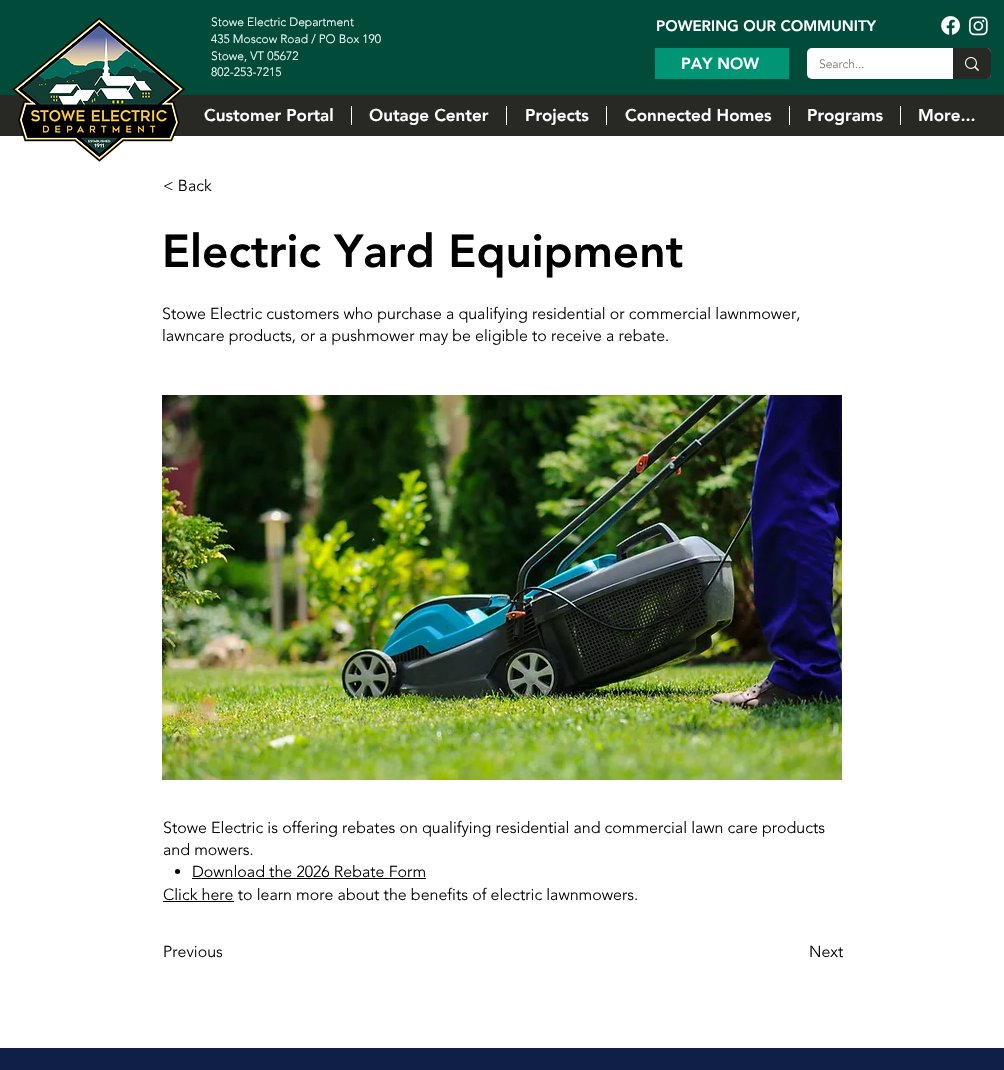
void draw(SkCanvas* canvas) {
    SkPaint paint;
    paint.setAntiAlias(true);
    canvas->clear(0xFFFFFFFF);
    paint.setColor(0xFF004B3A);
    canvas->drawRect(SkRect::MakeXYWH(0, 0, 1004, 95), paint);
    paint.setColor(0xFF282825);
    canvas->drawRect(SkRect::MakeXYWH(0, 95, 1004, 41), paint);
    canvas->drawImageRect(SkImages::DeferredFromEncodedData(SkData::MakeFromFileName("img1.png")), SkRect::MakeXYWH(12, 17, 173, 145), SkSamplingOptions());
    SkFont font1(fontMgr->matchFamilyStyle("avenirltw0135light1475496", SkFontStyle(300, SkFontStyle::kNormal_Width, SkFontStyle::kUpright_Slant)), 12);
    font1.setSubpixel(true);
    paint.setColor(0xFFFFFFFF);
    canvas->drawString("Stowe Electric Department", 211, 26, font1, paint);
    canvas->drawString("435 Moscow Road / PO Box 190", 211, 43, font1, paint);
    canvas->drawString("Stowe, VT 05672", 211, 60, font1, paint);
    canvas->drawString("802-253-7215", 211, 76, font1, paint);
    SkFont font2(fontMgr->matchFamilyStyle("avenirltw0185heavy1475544", SkFontStyle(900, SkFontStyle::kNormal_Width, SkFontStyle::kUpright_Slant)), 15);
    font2.setSubpixel(true);
    canvas->drawString("POWERING OUR COMMUNITY", 656, 31, font2, paint);
    canvas->drawImageRect(SkImages::DeferredFromEncodedData(SkData::MakeFromFileName("img2.png")), SkRect::MakeXYWH(941, 16, 20, 19), SkSamplingOptions());
    canvas->drawImageRect(SkImages::DeferredFromEncodedData(SkData::MakeFromFileName("img3.png")), SkRect::MakeXYWH(968, 16, 20, 20), SkSamplingOptions());
    paint.setColor(0xFF009574);
    canvas->drawRect(SkRect::MakeXYWH(655, 48, 134, 31), paint);
    SkFont font3(fontMgr->matchFamilyStyle("avenirltw0185heavy1475544", SkFontStyle(900, SkFontStyle::kNormal_Width, SkFontStyle::kUpright_Slant)), 16);
    font3.setSubpixel(true);
    paint.setColor(0xFFFFFFFF);
    canvas->drawString("PAY NOW", 681, 69, font3, paint);
    canvas->drawRoundRect(SkRect::MakeXYWH(807, 48, 184, 31), 5, 5, paint);
    paint.setColor(0xFF787878);
    canvas->drawString("Search...", 819, 68, font1, paint);
    paint.setColor(0xFF282825);
    canvas->drawPath(SkPathBuilder().moveTo(953, 48).lineTo(986, 48).cubicTo(989, 48, 991, 50, 991, 53).lineTo(991, 74).cubicTo(991, 77, 989, 79, 986, 79).lineTo(953, 79).close().detach(), paint);
    canvas->drawImageRect(SkImages::DeferredFromEncodedData(SkData::MakeFromFileName("img4.png")), SkRect::MakeXYWH(965, 57, 14, 14), SkSamplingOptions());
    SkFont font4(fontMgr->matchFamilyStyle("avenirltw0185heavy1475544", SkFontStyle(900, SkFontStyle::kNormal_Width, SkFontStyle::kUpright_Slant)), 17);
    font4.setSubpixel(true);
    paint.setColor(0xFFFFFFFF);
    canvas->drawString("Customer Portal", 204, 121, font4, paint);
    canvas->drawRect(SkRect::MakeXYWH(351, 106, 1, 19), paint);
    canvas->drawString("Outage Center", 369, 121, font4, paint);
    canvas->drawRect(SkRect::MakeXYWH(506, 106, 1, 19), paint);
    canvas->drawString("Projects", 525, 121, font4, paint);
    canvas->drawRect(SkRect::MakeXYWH(606, 106, 1, 19), paint);
    canvas->drawString("Connected Homes", 625, 121, font4, paint);
    canvas->drawRect(SkRect::MakeXYWH(789, 106, 1, 19), paint);
    canvas->drawString("Programs", 807, 121, font4, paint);
    canvas->drawRect(SkRect::MakeXYWH(900, 106, 1, 19), paint);
    canvas->drawString("More...", 918, 121, font4, paint);
    SkFont font5(fontMgr->matchFamilyStyle("avenirltw0135light1475496", SkFontStyle(300, SkFontStyle::kNormal_Width, SkFontStyle::kUpright_Slant)), 16);
    font5.setSubpixel(true);
    paint.setColor(0xFF000000);
    canvas->drawString("< Back", 163, 191, font5, paint);
    SkFont font6(fontMgr->matchFamilyStyle("avenirltw0185heavy1475544", SkFontStyle(900, SkFontStyle::kNormal_Width, SkFontStyle::kUpright_Slant)), 46);
    font6.setSubpixel(true);
    canvas->drawString("Electric Yard Equipment", 162, 267, font6, paint);
    canvas->drawString("Stowe Electric customers who purchase a qualifying residential or commercial lawnmower,", 162, 319, font5, paint);
    canvas->drawString("lawncare products, or a pushmower may be eligible to receive a rebate.", 162, 341, font5, paint);
    canvas->drawImageRect(SkImages::DeferredFromEncodedData(SkData::MakeFromFileName("img5.png")), SkRect::MakeXYWH(162, 395, 680, 385), SkSamplingOptions());
    canvas->drawString("Stowe Electric is offering rebates on qualifying residential and commercial lawn care products", 163, 833, font5, paint);
    canvas->drawString("and mowers.", 163, 855, font5, paint);
    canvas->drawCircle(177.5f, 871.5f, 2.5f, paint);
    canvas->drawString("Download the 2026 Rebate Form", 192, 877, font5, paint);
    canvas->drawRect(SkRect::MakeXYWH(192, 878, 234, 1), paint);
    canvas->drawString("Click here to learn more about the benefits of electric lawnmowers.", 163, 900, font5, paint);
    canvas->drawRect(SkRect::MakeXYWH(163, 901, 71, 1), paint);
    canvas->drawString("Previous", 163, 957, font5, paint);
    canvas->drawString("Next", 809, 957, font5, paint);
    paint.setColor(0xFF101F46);
    canvas->drawRect(SkRect::MakeXYWH(0, 1048, 1004, 22), paint);
}
